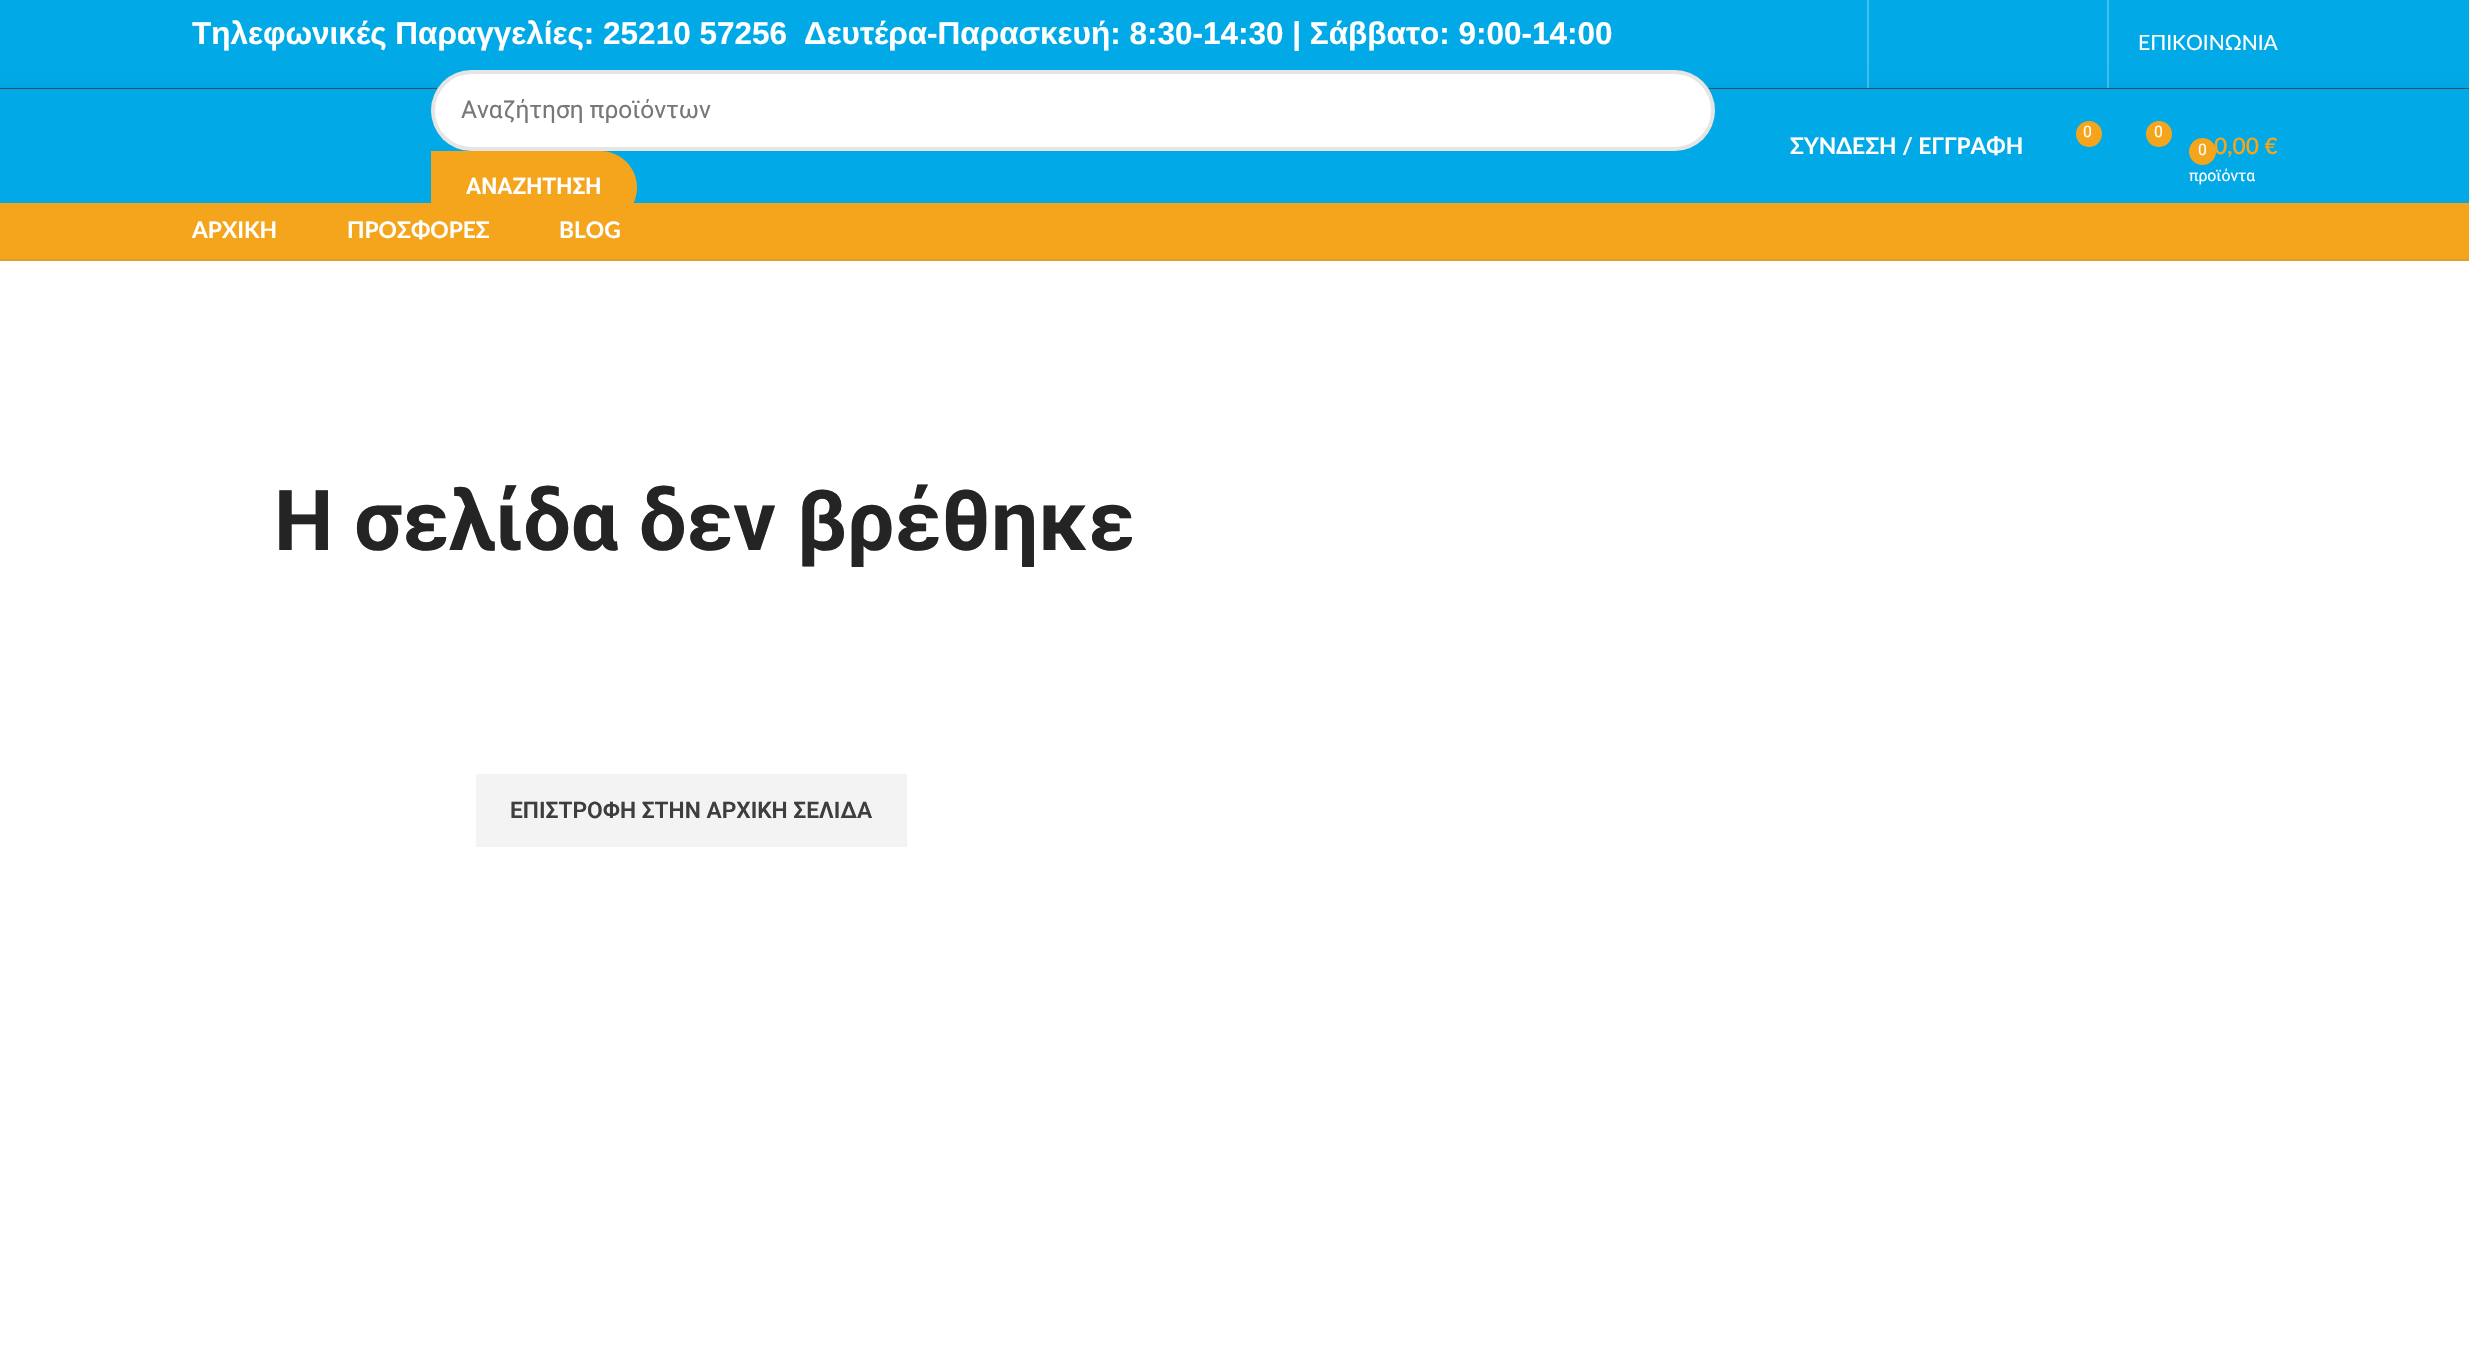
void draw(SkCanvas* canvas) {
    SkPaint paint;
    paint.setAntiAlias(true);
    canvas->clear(0xFFFFFFFF);
    paint.setColor(0xFF01A9E7);
    canvas->drawRect(SkRect::MakeXYWH(0, 0, 2469, 88), paint);
    paint.setColor(0xFF3A4D69);
    canvas->drawRect(SkRect::MakeXYWH(0, 88, 2469, 1), paint);
    SkFont font1(fontMgr->matchFamilyStyle("Liberation Sans", SkFontStyle::Bold()), 31.5f);
    font1.setSubpixel(true);
    paint.setColor(0xFFFFFFFF);
    canvas->drawString("Τηλεφωνικές Παραγγελίες: 25210 57256", 192, 44, font1, paint);
    canvas->drawString("Δευτέρα-Παρασκευή: 8:30-14:30 | Σάββατο: 9:00-14:00", 804, 44, font1, paint);
    paint.setColor(0x1A000000);
    paint.setMaskFilter(SkMaskFilter::MakeBlur(kNormal_SkBlurStyle, 7));
    canvas->drawRect(SkRect::MakeXYWH(0, 91, 2469, 114), paint);
    paint.setMaskFilter(nullptr);
    paint.setColor(0x40FFFFFF);
    canvas->drawRect(SkRect::MakeXYWH(1867, 0, 2, 88), paint);
    canvas->drawRect(SkRect::MakeXYWH(2107, 0, 2, 88), paint);
    SkFont font2(fontMgr->matchFamilyStyle("Lato", SkFontStyle::Normal()), 21);
    font2.setSubpixel(true);
    paint.setColor(0xFFFFFFFF);
    canvas->drawString("ΕΠΙΚΟΙΝΩΝΙΑ", 2138, 50, font2, paint);
    paint.setColor(0xFF01A9E7);
    canvas->drawRect(SkRect::MakeXYWH(0, 89, 2469, 114), paint);
    paint.setColor(0xFFFFFFFF);
    canvas->drawRoundRect(SkRect::MakeXYWH(431, 70, 1284, 81), 40.5f, 40.5f, paint);
    paint.setStyle(SkPaint::kStroke_Style);
    paint.setStrokeWidth(4);
    paint.setColor(0x1A000000);
    canvas->drawRoundRect(SkRect::MakeXYWH(433, 72, 1280, 77), 38.5f, 38.5f, paint);
    SkFont font3(fontMgr->matchFamilyStyle("Roboto", SkFontStyle::Normal()), 24.5f);
    font3.setSubpixel(true);
    paint.setStyle(SkPaint::kFill_Style);
    paint.setColor(0xFF777777);
    canvas->drawString("Αναζήτηση προϊόντων", 461, 118, font3, paint);
    paint.setColor(0xFFF4A51C);
    canvas->drawRect(SkRect::MakeXYWH(0, 203, 2469, 56), paint);
    canvas->drawPath(SkPathBuilder().moveTo(431, 151).lineTo(600.5f, 151).cubicTo(620.5f, 151, 637, 167.5f, 637, 187.5f).cubicTo(637, 207.5f, 620.5f, 224, 600.5f, 224).lineTo(431, 224).close().detach(), paint);
    SkFont font4(fontMgr->matchFamilyStyle("Roboto", SkFontStyle(600, SkFontStyle::kNormal_Width, SkFontStyle::kUpright_Slant)), 22.75f);
    font4.setSubpixel(true);
    paint.setColor(0xFFFFFFFF);
    canvas->drawString("ΑΝΑΖΗΤΗΣΗ", 466, 194, font4, paint);
    paint.setColor(0xFFF4A51C);
    canvas->drawCircle(2089, 134, 13, paint);
    SkFont font5(fontMgr->matchFamilyStyle("Roboto", SkFontStyle::Normal()), 15.75f);
    font5.setSubpixel(true);
    paint.setColor(0xFFFFFFFF);
    canvas->drawString("0", 2083, 137, font5, paint);
    paint.setColor(0xFFF4A51C);
    canvas->drawCircle(2159, 134, 13, paint);
    paint.setColor(0xFFFFFFFF);
    canvas->drawString("0", 2154, 137, font5, paint);
    SkFont font6(fontMgr->matchFamilyStyle("Lato", SkFontStyle::Bold()), 22.75f);
    font6.setSubpixel(true);
    canvas->drawString("ΣΥΝΔΕΣΗ / ΕΓΓΡΑΦΗ", 1790, 154, font6, paint);
    SkFont font7(fontMgr->matchFamilyStyle("Lato", SkFontStyle(600, SkFontStyle::kNormal_Width, SkFontStyle::kUpright_Slant)), 22.75f);
    font7.setSubpixel(true);
    paint.setColor(0xFFF4A51C);
    canvas->drawString("0,00 €", 2214, 154, font7, paint);
    canvas->drawCircle(2202.5f, 151.5f, 13.5f, paint);
    paint.setColor(0xFFFFFFFF);
    canvas->drawString("0", 2198, 155, font5, paint);
    canvas->drawString("προϊόντα", 2189, 181, font5, paint);
    paint.setColor(0xFFDD9E30);
    canvas->drawRect(SkRect::MakeXYWH(0, 259, 2469, 2), paint);
    paint.setColor(0xFFFFFFFF);
    canvas->drawString("ΑΡΧΙΚΗ", 192, 238, font6, paint);
    canvas->drawString("ΠΡΟΣΦΟΡΕΣ", 347, 238, font6, paint);
    canvas->drawString("BLOG", 559, 238, font6, paint);
    SkFont font8(fontMgr->matchFamilyStyle("Roboto", SkFontStyle::Bold()), 84);
    font8.setSubpixel(true);
    paint.setColor(0xFF242424);
    canvas->drawString("Η σελίδα δεν βρέθηκε", 274, 550, font8, paint);
    paint.setColor(0xFFF3F3F3);
    canvas->drawRect(SkRect::MakeXYWH(476, 774, 431, 73), paint);
    paint.setColor(0xFF3E3E3E);
    canvas->drawString("ΕΠΙΣΤΡΟΦΗ ΣΤΗΝ ΑΡΧΙΚΗ ΣΕΛΙΔΑ", 510, 818, font4, paint);
}
